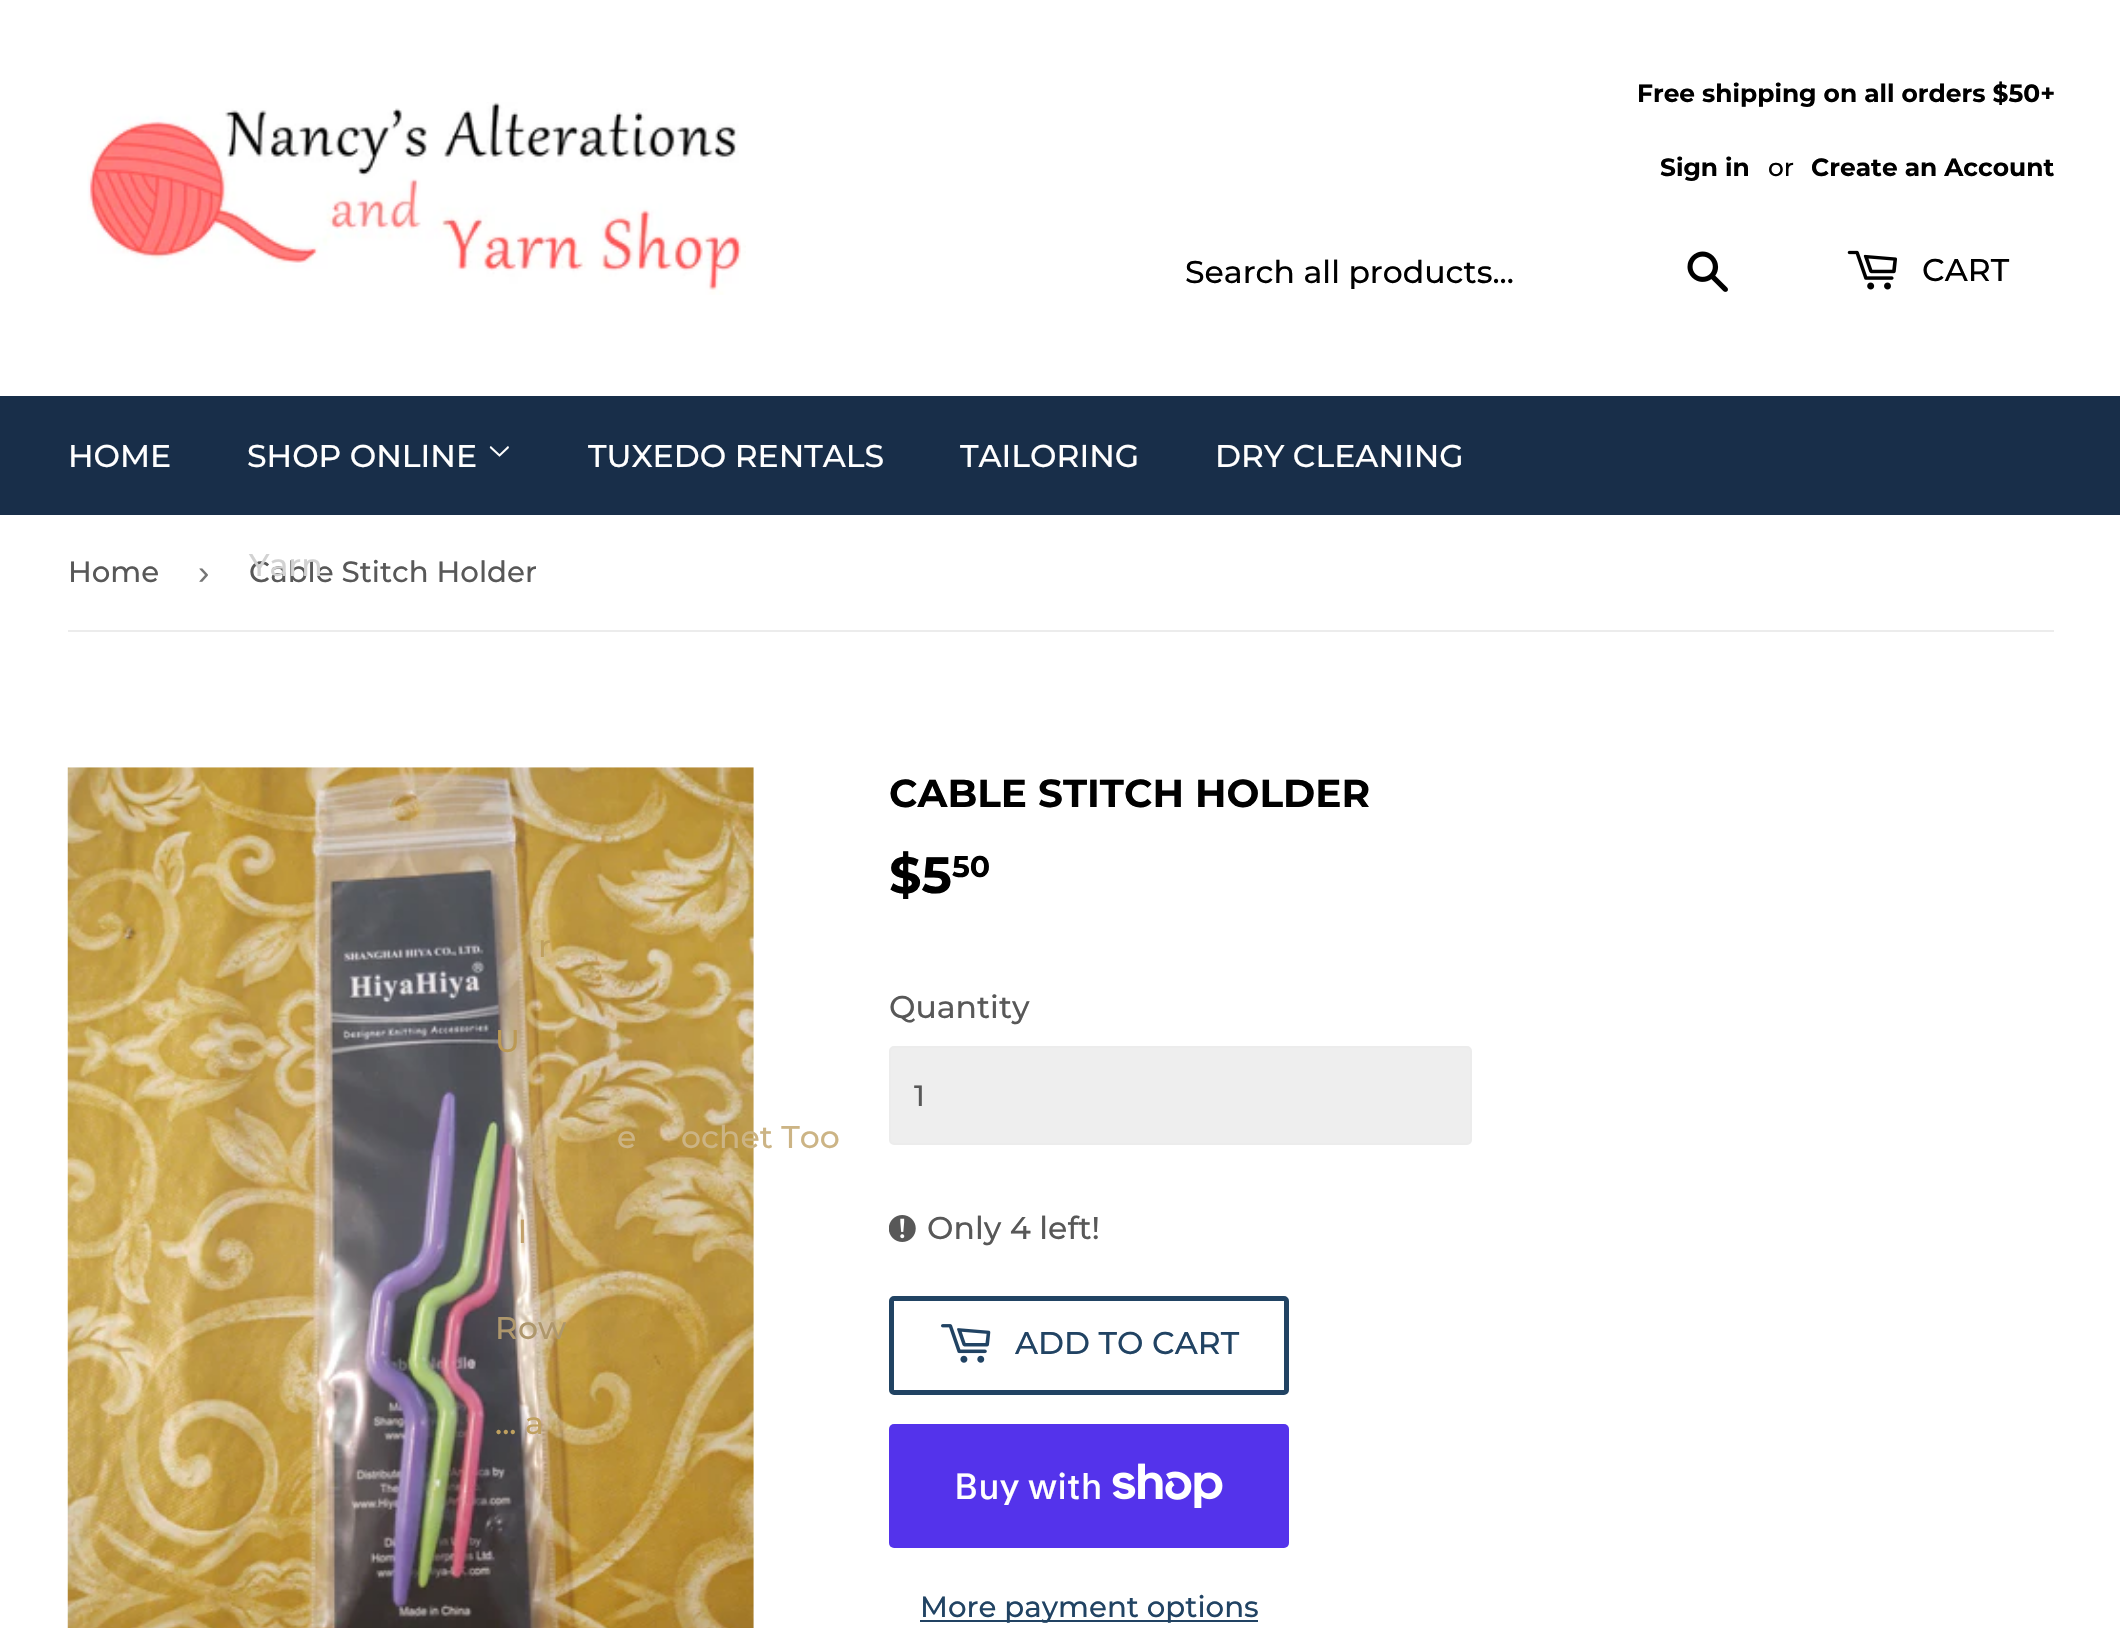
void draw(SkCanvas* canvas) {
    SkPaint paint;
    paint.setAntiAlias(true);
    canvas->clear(0xFFFFFFFF);
    canvas->drawImageRect(SkImages::DeferredFromEncodedData(SkData::MakeFromFileName("img1.png")), SkRect::MakeXYWH(87, 102, 659, 193), SkSamplingOptions());
    SkFont font1(fontMgr->matchFamilyStyle("Montserrat", SkFontStyle::Bold()), 24.9f);
    font1.setSubpixel(true);
    paint.setColor(0xFF000000);
    canvas->drawString("Free shipping on all orders $50+", 1637, 102, font1, paint);
    canvas->drawString("Sign in", 1660, 176, font1, paint);
    SkFont font2(fontMgr->matchFamilyStyle("Montserrat", SkFontStyle(500, SkFontStyle::kNormal_Width, SkFontStyle::kUpright_Slant)), 24.9f);
    font2.setSubpixel(true);
    canvas->drawString("or", 1768, 176, font2, paint);
    canvas->drawString("Create an Account", 1811, 176, font1, paint);
    SkFont font3(fontMgr->matchFamilyStyle("Montserrat", SkFontStyle(500, SkFontStyle::kNormal_Width, SkFontStyle::kUpright_Slant)), 31.5f);
    font3.setSubpixel(true);
    canvas->drawString("Search all products...", 1185, 283, font3, paint);
    canvas->drawImageRect(SkImages::DeferredFromEncodedData(SkData::MakeFromFileName("img2.png")), SkRect::MakeXYWH(1687, 251, 41, 41), SkSamplingOptions());
    canvas->drawImageRect(SkImages::DeferredFromEncodedData(SkData::MakeFromFileName("img3.png")), SkRect::MakeXYWH(1847, 250, 50, 40), SkSamplingOptions());
    canvas->drawString("CART", 1922, 281, font3, paint);
    paint.setColor(0xFF182E49);
    canvas->drawRect(SkRect::MakeXYWH(0, 396, 2120, 119), paint);
    paint.setColor(0xFFFFFFFF);
    canvas->drawString("HOME", 68, 467, font3, paint);
    canvas->drawString("SHOP ONLINE", 247, 467, font3, paint);
    canvas->drawImageRect(SkImages::DeferredFromEncodedData(SkData::MakeFromFileName("img4.png")), SkRect::MakeXYWH(489, 446, 20, 11), SkSamplingOptions());
    SkFont font4(fontMgr->matchFamilyStyle("Montserrat", SkFontStyle(500, SkFontStyle::kNormal_Width, SkFontStyle::kUpright_Slant)), 29.25f);
    font4.setSubpixel(true);
    paint.setColor(0xFF585858);
    canvas->drawString("Cable Stitch Holder", 249, 582, font4, paint);
    paint.setColor(0xFFD2D2D2);
    canvas->drawString("Yarn", 249, 576, font3, paint);
    canvas->drawImageRect(SkImages::DeferredFromEncodedData(SkData::MakeFromFileName("img5.png")), SkRect::MakeXYWH(67, 767, 687, 861), SkSamplingOptions());
    paint.setColor(0xFFBFA05F);
    canvas->drawString("r", 538, 957, font3, paint);
    paint.setColor(0xFFBB9954);
    canvas->drawString("U", 495, 1052, font3, paint);
    paint.setColor(0xFFCCB485);
    canvas->drawString("e", 617, 1148, font3, paint);
    canvas->drawString("ochet Too", 681, 1148, font3, paint);
    paint.setColor(0xFFC2A16A);
    canvas->drawString("l", 518, 1243, font3, paint);
    paint.setColor(0xFFAE976C);
    canvas->drawString("Row", 495, 1339, font3, paint);
    paint.setColor(0xFFBFA05F);
    canvas->drawString("... a", 495, 1434, font3, paint);
    paint.setColor(0xFFFFFFFF);
    canvas->drawString("TUXEDO RENTALS", 588, 467, font3, paint);
    canvas->drawString("TAILORING", 960, 467, font3, paint);
    canvas->drawString("DRY CLEANING", 1215, 467, font3, paint);
    paint.setColor(0xFFECECEC);
    canvas->drawRect(SkRect::MakeXYWH(68, 630, 1986, 2), paint);
    paint.setColor(0xFF585858);
    canvas->drawString("Home", 68, 582, font4, paint);
    SkFont font5(fontMgr->matchFamilyStyle("Liberation Sans", SkFontStyle::Normal()), 34);
    font5.setSubpixel(true);
    paint.setColor(0xFF767676);
    canvas->drawString("›", 198, 584, font5, paint);
    SkFont font6(fontMgr->matchFamilyStyle("Montserrat", SkFontStyle::Bold()), 39);
    font6.setSubpixel(true);
    paint.setColor(0xFF000000);
    canvas->drawString("CABLE STITCH HOLDER", 889, 807, font6, paint);
    SkFont font7(fontMgr->matchFamilyStyle("Montserrat", SkFontStyle::Bold()), 51);
    font7.setSubpixel(true);
    canvas->drawString("$5", 889, 893, font7, paint);
    SkFont font8(fontMgr->matchFamilyStyle("Montserrat", SkFontStyle::Bold()), 30);
    font8.setSubpixel(true);
    canvas->drawString("50", 952, 877, font8, paint);
    paint.setColor(0xFF585858);
    canvas->drawString("Quantity", 889, 1018, font3, paint);
    paint.setColor(0xFFEEEEEE);
    canvas->drawRoundRect(SkRect::MakeXYWH(890, 1047, 581, 97), 4, 4, paint);
    paint.setStyle(SkPaint::kStroke_Style);
    paint.setStrokeWidth(2);
    paint.setColor(0xFFECECEC);
    canvas->drawRoundRect(SkRect::MakeXYWH(890, 1047, 581, 97), 4, 4, paint);
    paint.setStyle(SkPaint::kFill_Style);
    paint.setColor(0xFF585858);
    canvas->drawString("1", 914, 1106, font4, paint);
    canvas->drawImageRect(SkImages::DeferredFromEncodedData(SkData::MakeFromFileName("img6.png")), SkRect::MakeXYWH(889, 1215, 27, 27), SkSamplingOptions());
    canvas->drawString("Only 4 left!", 927, 1239, font3, paint);
    paint.setStyle(SkPaint::kStroke_Style);
    paint.setStrokeWidth(5);
    paint.setColor(0xFF214363);
    canvas->drawRoundRect(SkRect::MakeXYWH(891.5f, 1298.5f, 395, 94), 2.5f, 2.5f, paint);
    canvas->drawImageRect(SkImages::DeferredFromEncodedData(SkData::MakeFromFileName("img7.png")), SkRect::MakeXYWH(941, 1324, 50, 39), SkSamplingOptions());
    paint.setStyle(SkPaint::kFill_Style);
    canvas->drawString("ADD TO CART", 1015, 1354, font3, paint);
    paint.setColor(0xFF5433EB);
    canvas->drawRoundRect(SkRect::MakeXYWH(889, 1424, 400, 124), 5, 5, paint);
    SkFont font9(fontMgr->matchFamilyStyle("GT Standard", SkFontStyle(500, SkFontStyle::kNormal_Width, SkFontStyle::kUpright_Slant)), 36);
    font9.setSubpixel(true);
    paint.setColor(0xFFFFFFFF);
    canvas->drawString("Buy with", 954, 1499, font9, paint);
    canvas->drawImageRect(SkImages::DeferredFromEncodedData(SkData::MakeFromFileName("img8.png")), SkRect::MakeXYWH(1112, 1463, 111, 45), SkSamplingOptions());
    paint.setColor(0xFF214363);
    canvas->drawRect(SkRect::MakeXYWH(920, 1620, 338, 2), paint);
    canvas->drawString("More payment options", 920, 1617, font4, paint);
}
